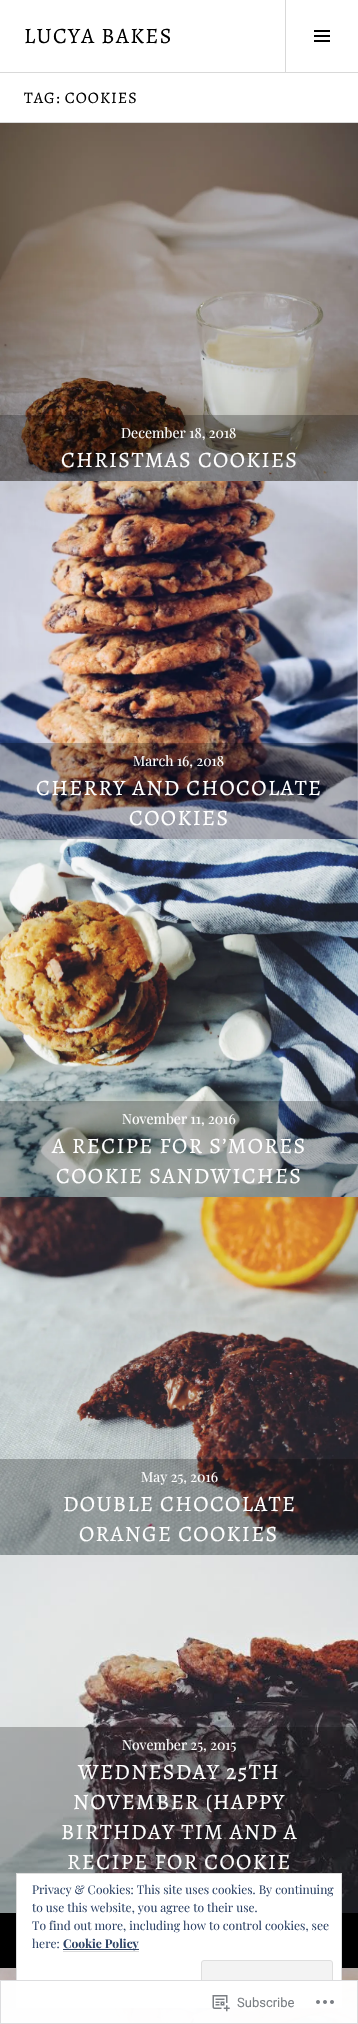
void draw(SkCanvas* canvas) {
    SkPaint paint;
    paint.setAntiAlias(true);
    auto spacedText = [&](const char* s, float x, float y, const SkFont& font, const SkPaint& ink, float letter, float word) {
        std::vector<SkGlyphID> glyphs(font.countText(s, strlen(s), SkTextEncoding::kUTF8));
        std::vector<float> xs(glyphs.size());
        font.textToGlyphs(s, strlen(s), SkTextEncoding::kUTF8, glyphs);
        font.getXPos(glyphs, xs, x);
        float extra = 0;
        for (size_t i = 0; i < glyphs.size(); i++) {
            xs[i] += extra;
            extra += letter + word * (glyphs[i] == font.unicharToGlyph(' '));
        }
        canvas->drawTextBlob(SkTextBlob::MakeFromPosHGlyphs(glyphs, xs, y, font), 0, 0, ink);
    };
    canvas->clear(0xFFFFFFFF);
    paint.setColor(0xFFD9D9D9);
    canvas->drawRect(SkRect::MakeXYWH(0, 72, 358, 1), paint);
    SkFont font1(fontMgr->matchFamilyStyle("Alegreya", SkFontStyle::Normal()), 22);
    font1.setSubpixel(true);
    paint.setColor(0xFF000000);
    spacedText("LUCYA BAKES", 24, 43, font1, paint, 1.4f, 0);
    paint.setColor(0xFFD9D9D9);
    canvas->drawRect(SkRect::MakeXYWH(285, 0, 1, 72), paint);
    canvas->drawImageRect(SkImages::DeferredFromEncodedData(SkData::MakeFromFileName("img1.png")), SkRect::MakeXYWH(314, 30, 16, 12), SkSamplingOptions());
    canvas->drawRect(SkRect::MakeXYWH(0, 122, 358, 1), paint);
    SkFont font2(fontMgr->matchFamilyStyle("Alegreya", SkFontStyle::Normal()), 16);
    font2.setSubpixel(true);
    paint.setColor(0xFF000000);
    spacedText("TAG: COOKIES", 24, 103, font2, paint, 1, 0);
    canvas->drawImageRect(SkImages::DeferredFromEncodedData(SkData::MakeFromFileName("img2.png")), SkRect::MakeXYWH(0, 123, 358, 358), SkSamplingOptions());
    paint.setColor(0x40000000);
    canvas->drawRect(SkRect::MakeXYWH(0, 415, 358, 66), paint);
    SkFont font3(fontMgr->matchFamilyStyle("Playfair Display", SkFontStyle::Normal()), 14);
    font3.setSubpixel(true);
    paint.setColor(0xFFFFFFFF);
    canvas->drawString("December 18, 2018", 121, 438, font3, paint);
    spacedText("CHRISTMAS COOKIES", 61, 467, font1, paint, 1.4f, 0);
    canvas->drawImageRect(SkImages::DeferredFromEncodedData(SkData::MakeFromFileName("img3.png")), SkRect::MakeXYWH(0, 481, 358, 358), SkSamplingOptions());
    paint.setColor(0x40000000);
    canvas->drawRect(SkRect::MakeXYWH(0, 743, 358, 96), paint);
    paint.setColor(0xFFFFFFFF);
    canvas->drawString("March 16, 2018", 133, 766, font3, paint);
    spacedText("CHERRY AND CHOCOLATE", 36, 795, font1, paint, 1.4f, 0);
    spacedText("COOKIES", 129, 825, font1, paint, 1.4f, 0);
    canvas->drawImageRect(SkImages::DeferredFromEncodedData(SkData::MakeFromFileName("img4.png")), SkRect::MakeXYWH(0, 839, 358, 358), SkSamplingOptions());
    paint.setColor(0x40000000);
    canvas->drawRect(SkRect::MakeXYWH(0, 1101, 358, 96), paint);
    paint.setColor(0xFFFFFFFF);
    canvas->drawString("November 11, 2016", 122, 1124, font3, paint);
    spacedText("A RECIPE FOR S’MORES", 52, 1153, font1, paint, 1.4f, 0);
    spacedText("COOKIE SANDWICHES", 56, 1183, font1, paint, 1.4f, 0);
    canvas->drawImageRect(SkImages::DeferredFromEncodedData(SkData::MakeFromFileName("img5.png")), SkRect::MakeXYWH(0, 1197, 358, 358), SkSamplingOptions());
    paint.setColor(0x40000000);
    canvas->drawRect(SkRect::MakeXYWH(0, 1459, 358, 96), paint);
    paint.setColor(0xFFFFFFFF);
    canvas->drawString("May 25, 2016", 141, 1482, font3, paint);
    spacedText("DOUBLE CHOCOLATE", 63, 1511, font1, paint, 1.4f, 0);
    spacedText("ORANGE COOKIES", 79, 1541, font1, paint, 1.4f, 0);
    canvas->drawImageRect(SkImages::DeferredFromEncodedData(SkData::MakeFromFileName("img6.png")), SkRect::MakeXYWH(0, 1555, 358, 358), SkSamplingOptions());
    paint.setColor(0x40000000);
    canvas->drawRect(SkRect::MakeXYWH(0, 1727, 358, 186), paint);
    paint.setColor(0xFFFFFFFF);
    canvas->drawString("November 25, 2015", 122, 1750, font3, paint);
    spacedText("WEDNESDAY 25TH", 78, 1779, font1, paint, 1.4f, 0);
    spacedText("NOVEMBER (HAPPY", 73, 1809, font1, paint, 1.4f, 0);
    spacedText("BIRTHDAY TIM AND A", 61, 1839, font1, paint, 1.4f, 0);
    spacedText("RECIPE FOR COOKIE", 67, 1869, font1, paint, 1.4f, 0);
    paint.setColor(0xFF000000);
    canvas->drawRect(SkRect::MakeXYWH(0, 1913, 358, 55), paint);
    canvas->drawImageRect(SkImages::DeferredFromEncodedData(SkData::MakeFromFileName("img7.png")), SkRect::MakeXYWH(0, 1968, 358, 56), SkSamplingOptions());
    paint.setColor(0xFFFFFFFF);
    canvas->drawRect(SkRect::MakeXYWH(16.5f, 1873.5f, 325, 134), paint);
    paint.setStyle(SkPaint::kStroke_Style);
    paint.setStrokeWidth(1);
    paint.setColor(0xFFDEDEDE);
    canvas->drawRect(SkRect::MakeXYWH(16.5f, 1873.5f, 325, 134), paint);
    SkFont font4(fontMgr->matchFamilyStyle("Playfair Display", SkFontStyle::Normal()), 12);
    font4.setSubpixel(true);
    paint.setStyle(SkPaint::kFill_Style);
    paint.setColor(0xFF2E4467);
    canvas->drawString("Privacy & Cookies: This site uses cookies. By continuing", 32, 1894, font4, paint);
    canvas->drawString("to use this website, you agree to their use.", 32, 1912, font4, paint);
    canvas->drawString("To find out more, including how to control cookies, see", 32, 1930, font4, paint);
    canvas->drawString("here:", 32, 1948, font4, paint);
    canvas->drawRect(SkRect::MakeXYWH(63, 1949, 76, 1), paint);
    SkFont font5(fontMgr->matchFamilyStyle("Playfair Display", SkFontStyle::Bold()), 12);
    font5.setSubpixel(true);
    canvas->drawString("Cookie Policy", 63, 1948, font5, paint);
    paint.setColor(0xFFD9D9D9);
    canvas->drawRect(SkRect::MakeXYWH(63, 1951, 76, 1), paint);
    paint.setColor(0xFFF3F3F3);
    canvas->drawRoundRect(SkRect::MakeXYWH(201.5f, 1960.5f, 131, 38), 2.5f, 2.5f, paint);
    paint.setStyle(SkPaint::kStroke_Style);
    paint.setColor(0xFFDEDEDE);
    canvas->drawRoundRect(SkRect::MakeXYWH(201.5f, 1960.5f, 131, 38), 2.5f, 2.5f, paint);
    paint.setStyle(SkPaint::kFill_Style);
    paint.setColor(0xFAFFFFFF);
    canvas->drawRect(SkRect::MakeXYWH(0, 1980, 358, 44), paint);
    paint.setStyle(SkPaint::kStroke_Style);
    paint.setColor(0xFADCDCDE);
    canvas->drawRect(SkRect::MakeXYWH(0.5f, 1980.5f, 357, 43), paint);
    canvas->drawImageRect(SkImages::DeferredFromEncodedData(SkData::MakeFromFileName("img8.png")), SkRect::MakeXYWH(212, 1995, 18, 17), SkSamplingOptions());
    SkFont font6(fontMgr->matchFamilyStyle("Roboto", SkFontStyle::Normal()), 13);
    font6.setSubpixel(true);
    paint.setStyle(SkPaint::kFill_Style);
    paint.setColor(0xFF7B7F84);
    canvas->drawString("Subscribe", 237, 2007, font6, paint);
    canvas->drawImageRect(SkImages::DeferredFromEncodedData(SkData::MakeFromFileName("img9.png")), SkRect::MakeXYWH(316, 2000, 18, 4), SkSamplingOptions());
}
